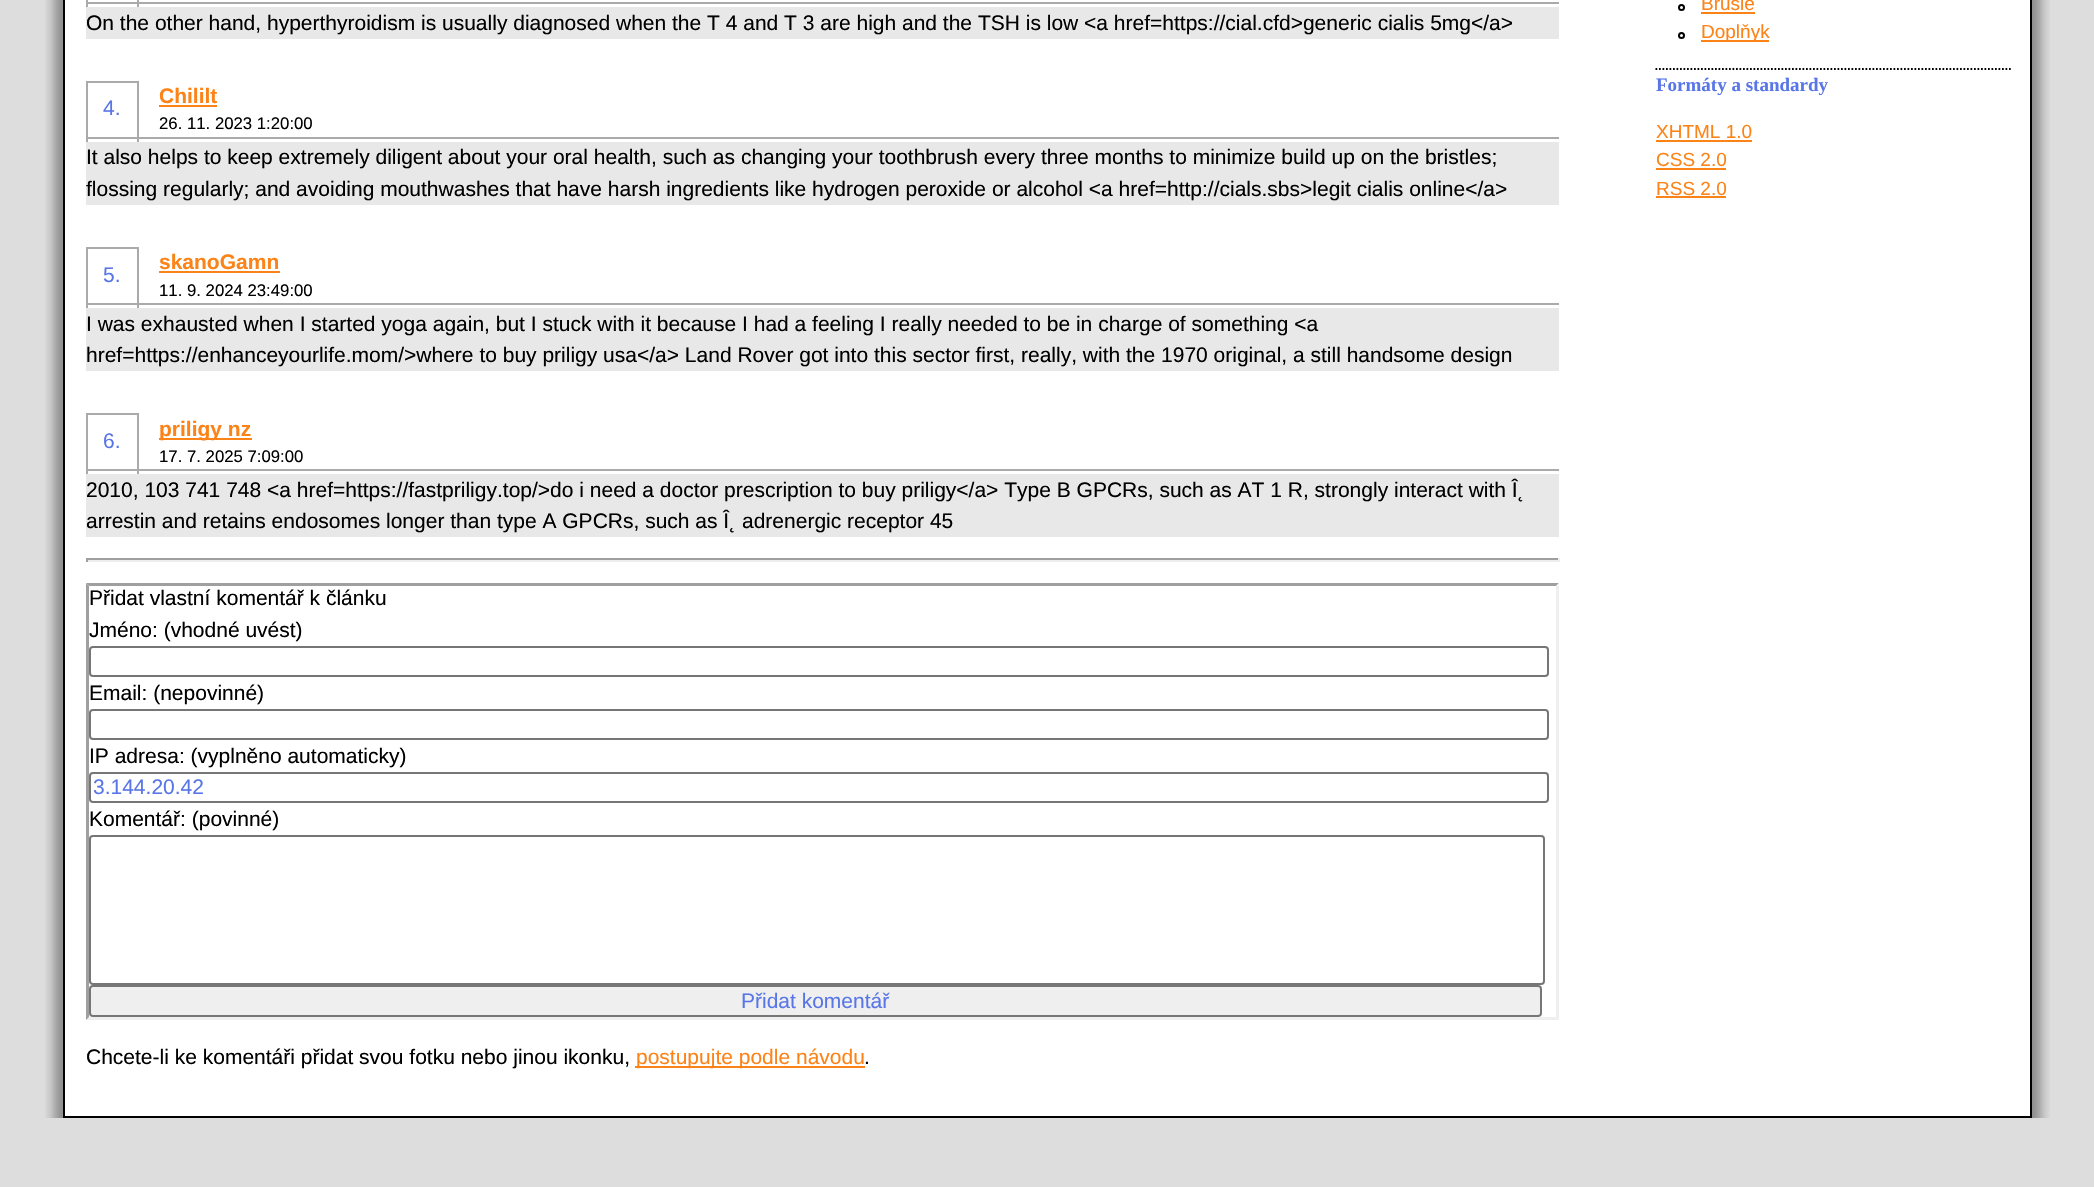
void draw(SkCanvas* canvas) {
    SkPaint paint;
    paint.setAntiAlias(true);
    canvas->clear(0xFFDDDDDD);
    canvas->drawImageRect(SkImages::DeferredFromEncodedData(SkData::MakeFromFileName("img1.png")), SkRect::MakeXYWH(45, 0, 18, 1118), SkSamplingOptions());
    canvas->drawImageRect(SkImages::DeferredFromEncodedData(SkData::MakeFromFileName("img2.png")), SkRect::MakeXYWH(2032, 0, 18, 1118), SkSamplingOptions());
    paint.setColor(0xFFFFFFFF);
    canvas->drawRect(SkRect::MakeXYWH(64, -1, 1967, 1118), paint);
    paint.setStyle(SkPaint::kStroke_Style);
    paint.setStrokeWidth(2);
    paint.setColor(0xFF000000);
    canvas->drawRect(SkRect::MakeXYWH(64, -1, 1967, 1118), paint);
    paint.setStyle(SkPaint::kFill_Style);
    paint.setColor(0xFFAAAAAA);
    canvas->drawRect(SkRect::MakeXYWH(86, 2, 1473, 2), paint);
    canvas->drawRect(SkRect::MakeXYWH(137, 0, 2, 7), paint);
    canvas->drawRect(SkRect::MakeXYWH(86, 0, 2, 7), paint);
    paint.setColor(0xFFE8E8E8);
    canvas->drawRect(SkRect::MakeXYWH(86, 7, 1473, 32), paint);
    SkFont font1(fontMgr->matchFamilyStyle("Liberation Sans", SkFontStyle::Normal()), 21);
    font1.setSubpixel(true);
    paint.setColor(0xFF000000);
    canvas->drawString("On the other hand, hyperthyroidism is usually diagnosed when the T 4 and T 3 are high and the TSH is low <a href=https://cial.cfd>generic cialis 5mg</a>", 86, 30, font1, paint);
    paint.setColor(0xFFAAAAAA);
    canvas->drawRect(SkRect::MakeXYWH(86, 137, 1473, 2), paint);
    SkFont font2(fontMgr->matchFamilyStyle("Liberation Sans", SkFontStyle::Bold()), 21);
    font2.setSubpixel(true);
    paint.setColor(0xFFFC8317);
    canvas->drawString("Chililt", 159, 103, font2, paint);
    canvas->drawRect(SkRect::MakeXYWH(159, 105, 58, 2), paint);
    paint.setColor(0xFFAAAAAA);
    canvas->drawRect(SkRect::MakeXYWH(86, 81, 52, 2), paint);
    canvas->drawRect(SkRect::MakeXYWH(137, 81, 2, 61), paint);
    canvas->drawRect(SkRect::MakeXYWH(86, 81, 2, 61), paint);
    paint.setColor(0xFF5876E7);
    canvas->drawString("4.", 103, 115, font1, paint);
    SkFont font3(fontMgr->matchFamilyStyle("Liberation Sans", SkFontStyle::Normal()), 16.75f);
    font3.setSubpixel(true);
    paint.setColor(0xFF000000);
    canvas->drawString("26. 11. 2023 1:20:00", 159, 129, font3, paint);
    paint.setColor(0xFFE8E8E8);
    canvas->drawRect(SkRect::MakeXYWH(86, 142, 1473, 63), paint);
    paint.setColor(0xFF000000);
    canvas->drawString("It also helps to keep extremely diligent about your oral health, such as changing your toothbrush every three months to minimize build up on the bristles;", 86, 164, font1, paint);
    canvas->drawString("flossing regularly; and avoiding mouthwashes that have harsh ingredients like hydrogen peroxide or alcohol <a href=http://cials.sbs>legit cialis online</a>", 86, 196, font1, paint);
    paint.setColor(0xFFAAAAAA);
    canvas->drawRect(SkRect::MakeXYWH(86, 303, 1473, 2), paint);
    paint.setColor(0xFFFC8317);
    canvas->drawString("skanoGamn", 159, 269, font2, paint);
    canvas->drawRect(SkRect::MakeXYWH(159, 271, 121, 2), paint);
    paint.setColor(0xFFAAAAAA);
    canvas->drawRect(SkRect::MakeXYWH(86, 247, 52, 2), paint);
    canvas->drawRect(SkRect::MakeXYWH(137, 247, 2, 61), paint);
    canvas->drawRect(SkRect::MakeXYWH(86, 247, 2, 61), paint);
    paint.setColor(0xFF5876E7);
    canvas->drawString("5.", 103, 282, font1, paint);
    paint.setColor(0xFF000000);
    canvas->drawString("11. 9. 2024 23:49:00", 159, 296, font3, paint);
    paint.setColor(0xFFE8E8E8);
    canvas->drawRect(SkRect::MakeXYWH(86, 308, 1473, 63), paint);
    paint.setColor(0xFF000000);
    canvas->drawString("I was exhausted when I started yoga again, but I stuck with it because I had a feeling I really needed to be in charge of something <a", 86, 331, font1, paint);
    canvas->drawString("href=https://enhanceyourlife.mom/>where to buy priligy usa</a> Land Rover got into this sector first, really, with the 1970 original, a still handsome design", 86, 362, font1, paint);
    paint.setColor(0xFFAAAAAA);
    canvas->drawRect(SkRect::MakeXYWH(86, 469, 1473, 2), paint);
    canvas->drawRect(SkRect::MakeXYWH(86, 413, 52, 2), paint);
    canvas->drawRect(SkRect::MakeXYWH(137, 413, 2, 61), paint);
    canvas->drawRect(SkRect::MakeXYWH(86, 413, 2, 61), paint);
    paint.setColor(0xFF5876E7);
    canvas->drawString("6.", 103, 448, font1, paint);
    paint.setColor(0xFFFC8317);
    canvas->drawRect(SkRect::MakeXYWH(159, 438, 93, 2), paint);
    canvas->drawString("priligy nz", 159, 436, font2, paint);
    paint.setColor(0xFF000000);
    canvas->drawString("17. 7. 2025 7:09:00", 159, 462, font3, paint);
    paint.setColor(0xFFE8E8E8);
    canvas->drawRect(SkRect::MakeXYWH(86, 474, 1473, 63), paint);
    paint.setColor(0xFF000000);
    canvas->drawString("2010, 103 741 748 <a href=https://fastpriligy.top/>do i need a doctor prescription to buy priligy</a> Type B GPCRs, such as AT 1 R, strongly interact with Î˛", 86, 497, font1, paint);
    canvas->drawString("arrestin and retains endosomes longer than type A GPCRs, such as Î˛ adrenergic receptor 45", 86, 528, font1, paint);
    paint.setColor(0xFF9F9F9F);
    canvas->drawRect(SkRect::MakeXYWH(86, 558, 1473, 2), paint);
    paint.setColor(0xFFEEEEEE);
    canvas->drawRect(SkRect::MakeXYWH(1558, 558, 2, 4), paint);
    canvas->drawRect(SkRect::MakeXYWH(86, 560, 1473, 2), paint);
    paint.setColor(0xFF9F9F9F);
    canvas->drawRect(SkRect::MakeXYWH(86, 558, 2, 4), paint);
    canvas->drawPath(SkPathBuilder().moveTo(86, 583).lineTo(1559, 583).lineTo(1556, 586).lineTo(89, 586).close().detach(), paint);
    paint.setColor(0xFFEFEFEF);
    canvas->drawPath(SkPathBuilder().moveTo(1559, 583).lineTo(1559, 1020).lineTo(1556, 1017).lineTo(1556, 586).close().detach(), paint);
    canvas->drawPath(SkPathBuilder().moveTo(1559, 1020).lineTo(86, 1020).lineTo(89, 1017).lineTo(1556, 1017).close().detach(), paint);
    paint.setColor(0xFF9F9F9F);
    canvas->drawPath(SkPathBuilder().moveTo(86, 1020).lineTo(86, 583).lineTo(89, 586).lineTo(89, 1017).close().detach(), paint);
    paint.setColor(0xFF000000);
    canvas->drawString("Přidat vlastní komentář k článku", 89, 605, font1, paint);
    canvas->drawString("Jméno: (vhodné uvést)", 89, 637, font1, paint);
    paint.setStyle(SkPaint::kStroke_Style);
    paint.setColor(0xFF767676);
    canvas->drawRoundRect(SkRect::MakeXYWH(90, 647, 1458, 29), 3, 3, paint);
    paint.setStyle(SkPaint::kFill_Style);
    paint.setColor(0xFF000000);
    canvas->drawString("Email: (nepovinné)", 89, 700, font1, paint);
    paint.setStyle(SkPaint::kStroke_Style);
    paint.setColor(0xFF767676);
    canvas->drawRoundRect(SkRect::MakeXYWH(90, 710, 1458, 29), 3, 3, paint);
    paint.setStyle(SkPaint::kFill_Style);
    paint.setColor(0xFF000000);
    canvas->drawString("IP adresa: (vyplněno automaticky)", 89, 763, font1, paint);
    paint.setStyle(SkPaint::kStroke_Style);
    paint.setColor(0xFF767676);
    canvas->drawRoundRect(SkRect::MakeXYWH(90, 773, 1458, 29), 3, 3, paint);
    paint.setStyle(SkPaint::kFill_Style);
    paint.setColor(0xFF5876E7);
    canvas->drawString("3.144.20.42", 93, 794, font1, paint);
    paint.setColor(0xFF000000);
    canvas->drawString("Komentář: (povinné)", 89, 826, font1, paint);
    paint.setStyle(SkPaint::kStroke_Style);
    paint.setColor(0xFF767676);
    canvas->drawRoundRect(SkRect::MakeXYWH(90, 836, 1454, 148), 3, 3, paint);
    paint.setStyle(SkPaint::kFill_Style);
    paint.setColor(0xFFEFEFEF);
    canvas->drawRoundRect(SkRect::MakeXYWH(90, 986, 1451, 30), 3, 3, paint);
    paint.setStyle(SkPaint::kStroke_Style);
    paint.setColor(0xFF767676);
    canvas->drawRoundRect(SkRect::MakeXYWH(90, 986, 1451, 30), 3, 3, paint);
    paint.setStyle(SkPaint::kFill_Style);
    paint.setColor(0xFF5876E7);
    canvas->drawString("Přidat komentář", 741, 1008, font1, paint);
    paint.setColor(0xFF000000);
    canvas->drawString("Chcete-li ke komentáři přidat svou fotku nebo jinou ikonku,", 86, 1064, font1, paint);
    paint.setColor(0xFFFC8317);
    canvas->drawRect(SkRect::MakeXYWH(635, 1066, 230, 2), paint);
    canvas->drawString("postupujte podle návodu", 636, 1064, font1, paint);
    paint.setColor(0xFF000000);
    canvas->drawString(".", 864, 1064, font1, paint);
    paint.setStyle(SkPaint::kStroke_Style);
    canvas->drawCircle(1681.5f, 7.5f, 2.5f, paint);
    SkFont font4(fontMgr->matchFamilyStyle("Liberation Sans", SkFontStyle::Normal()), 19);
    font4.setSubpixel(true);
    paint.setStyle(SkPaint::kFill_Style);
    paint.setColor(0xFFFC8317);
    canvas->drawString("Brusle", 1701, 10, font4, paint);
    canvas->drawRect(SkRect::MakeXYWH(1701, 12, 54, 2), paint);
    paint.setStyle(SkPaint::kStroke_Style);
    paint.setColor(0xFF000000);
    canvas->drawCircle(1681.5f, 35.5f, 2.5f, paint);
    paint.setStyle(SkPaint::kFill_Style);
    paint.setColor(0xFFFC8317);
    canvas->drawRect(SkRect::MakeXYWH(1701, 40, 68, 2), paint);
    canvas->drawString("Doplňyk", 1701, 38, font4, paint);
    paint.setStyle(SkPaint::kStroke_Style);
    paint.setStrokeWidth(1.8f);
    paint.setColor(0xFF000000);
    paint.setPathEffect(SkDashPathEffect::Make({{1.75f, 1.75f}}, 0));
    canvas->drawPath(SkPathBuilder().moveTo(1655.5f, 69).lineTo(2011, 69).detach(), paint);
    paint.setPathEffect(nullptr);
    SkFont font5(fontMgr->matchFamilyStyle("Liberation Serif", SkFontStyle::Bold()), 19);
    font5.setSubpixel(true);
    paint.setStyle(SkPaint::kFill_Style);
    paint.setColor(0xFF5876E7);
    canvas->drawString("Formáty a standardy", 1656, 91, font5, paint);
    paint.setColor(0xFFFC8317);
    canvas->drawString("XHTML 1.0", 1656, 138, font4, paint);
    canvas->drawRect(SkRect::MakeXYWH(1656, 140, 96, 2), paint);
    canvas->drawString("CSS 2.0", 1656, 166, font4, paint);
    canvas->drawRect(SkRect::MakeXYWH(1656, 168, 70, 2), paint);
    canvas->drawString("RSS 2.0", 1656, 195, font4, paint);
    canvas->drawRect(SkRect::MakeXYWH(1656, 196, 70, 2), paint);
}
